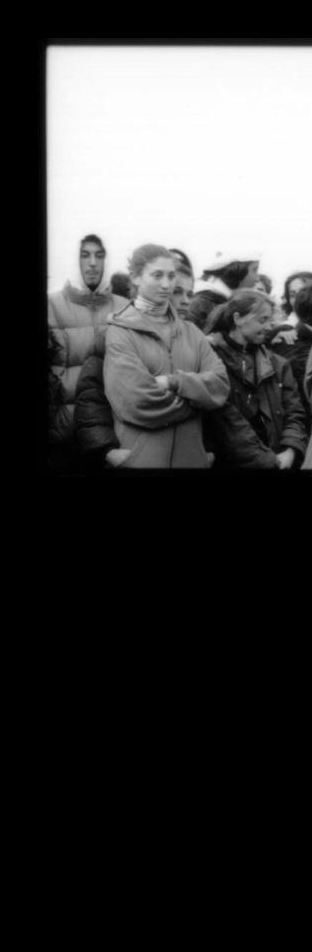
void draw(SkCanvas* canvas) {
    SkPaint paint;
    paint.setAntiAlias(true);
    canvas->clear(0xFF000000);
    canvas->drawImageRect(SkImages::DeferredFromEncodedData(SkData::MakeFromFileName("img1.png")), SkRect::MakeXYWH(38, 38, 274, 439), SkSamplingOptions());
}
